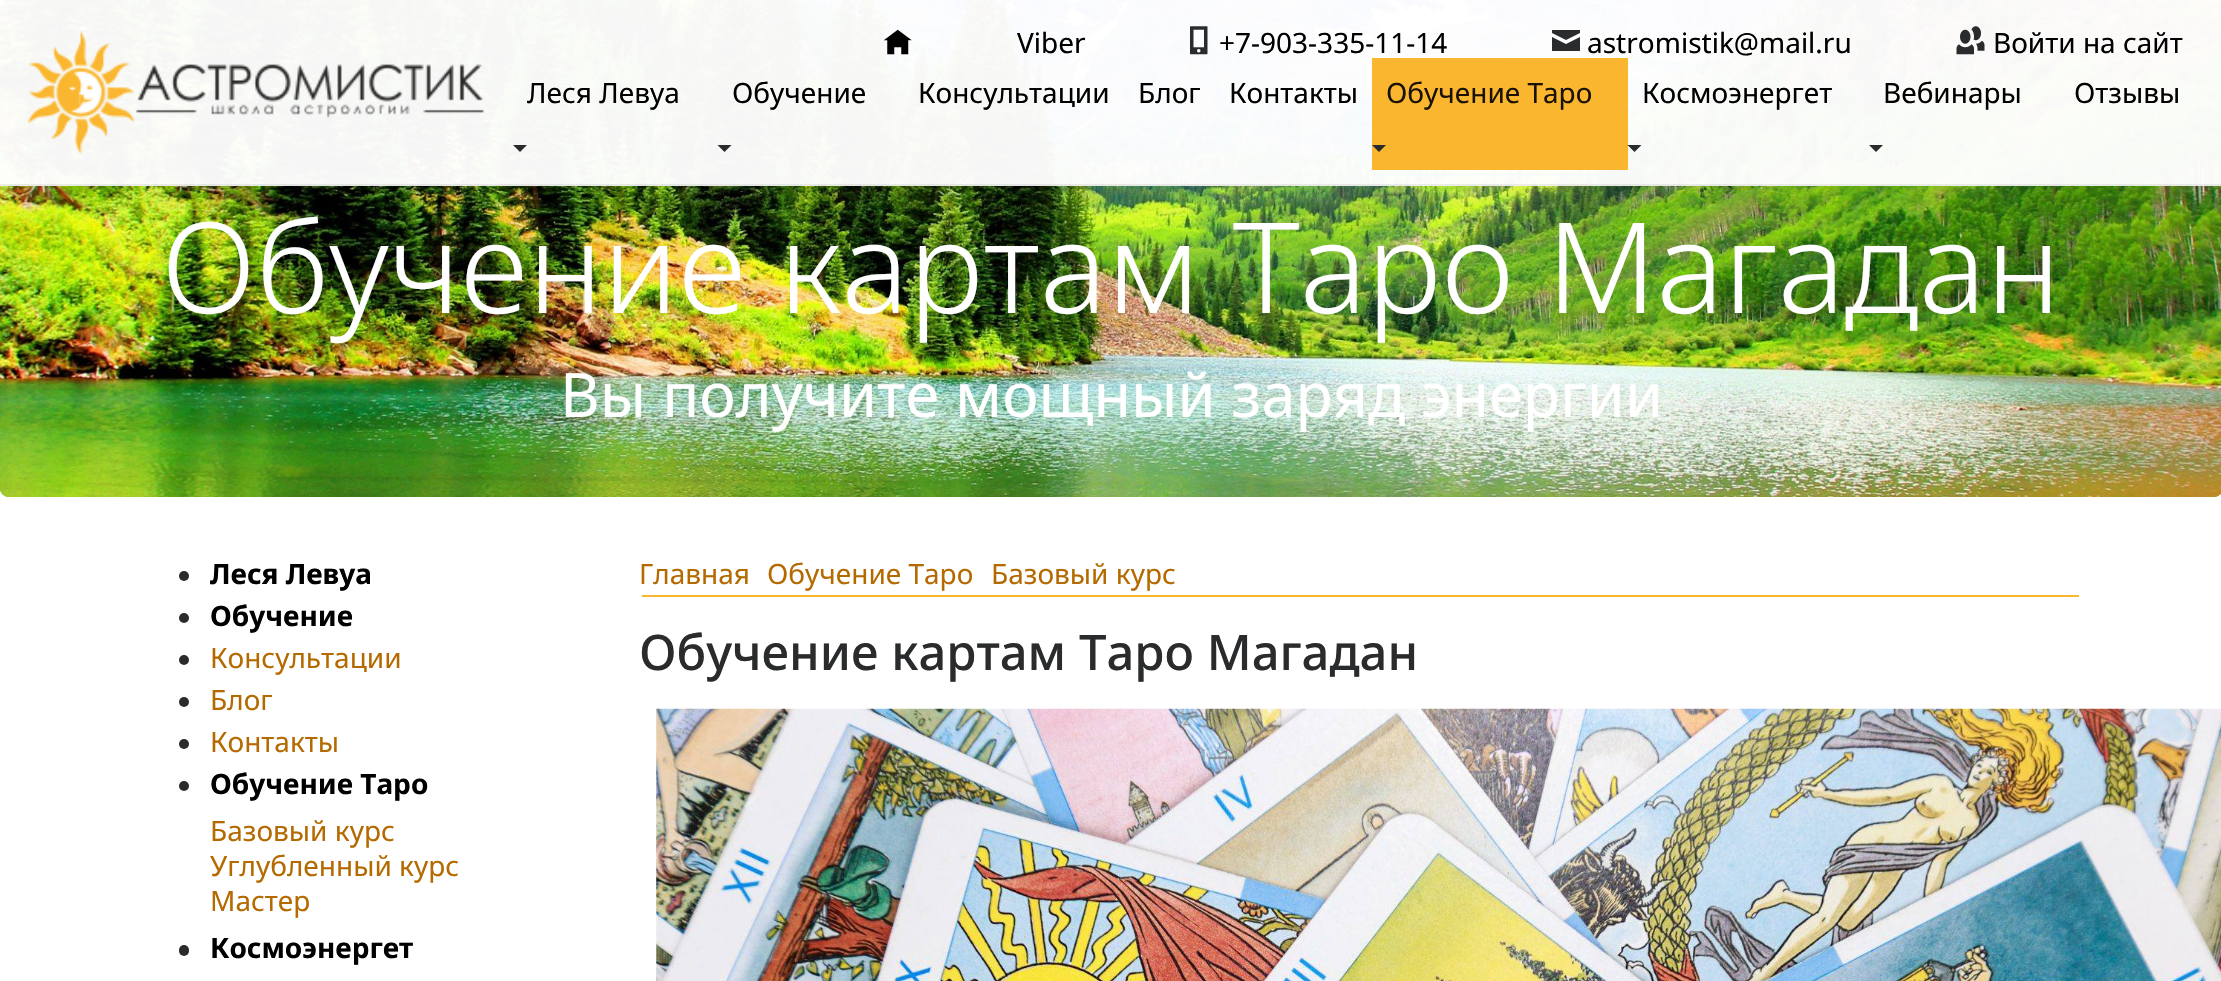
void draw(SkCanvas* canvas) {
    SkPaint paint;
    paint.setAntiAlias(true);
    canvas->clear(0xFFFFFFFF);
    paint.setColor(0xFF926100);
    canvas->drawRoundRect(SkRect::MakeXYWH(0, 0, 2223, 497), 9, 9, paint);
    canvas->drawImageRect(SkImages::DeferredFromEncodedData(SkData::MakeFromFileName("img5.png")), SkRect::MakeXYWH(0, 0, 2221, 497), SkSamplingOptions());
    canvas->save();
    canvas->clipPath(SkPathBuilder(SkPathFillType::kEvenOdd).moveTo(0, 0).lineTo(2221, 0).lineTo(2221, 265).lineTo(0, 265).close().moveTo(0, 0).lineTo(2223, 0).lineTo(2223, 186).lineTo(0, 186).close().detach(), true);
    paint.setColor(0x1A000000);
    paint.setMaskFilter(SkMaskFilter::MakeBlur(kNormal_SkBlurStyle, 26));
    canvas->drawRect(SkRect::MakeXYWH(0, 0, 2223, 186), paint);
    paint.setMaskFilter(nullptr);
    canvas->restore();
    paint.setColor(0xF5FFFFFF);
    canvas->drawRect(SkRect::MakeXYWH(0, 0, 2221, 186), paint);
    paint.setColor(0x12000000);
    canvas->drawRect(SkRect::MakeXYWH(0, 184, 2221, 2), paint);
    canvas->drawImageRect(SkImages::DeferredFromEncodedData(SkData::MakeFromFileName("img1.png")), SkRect::MakeXYWH(28, 31, 457, 123), SkSamplingOptions());
    canvas->drawImageRect(SkImages::DeferredFromEncodedData(SkData::MakeFromFileName("img2.png")), SkRect::MakeXYWH(883, 29, 29, 26), SkSamplingOptions());
    SkFont font1(fontMgr->matchFamilyStyle("Noto Sans", SkFontStyle::Normal()), 28);
    font1.setSubpixel(true);
    paint.setColor(0xFF000000);
    canvas->drawString("Viber", 1017, 53, font1, paint);
    canvas->drawImageRect(SkImages::DeferredFromEncodedData(SkData::MakeFromFileName("img3.png")), SkRect::MakeXYWH(1190, 26, 18, 29), SkSamplingOptions());
    canvas->drawString("+7-903-335-11-14", 1219, 53, font1, paint);
    paint.setColor(0xFF292B2C);
    canvas->drawPath(SkPathBuilder().moveTo(1552, 30).lineTo(1580, 30).lineTo(1580, 33).lineTo(1566, 40).lineTo(1552, 33).close().moveTo(1552, 37).lineTo(1566, 44).lineTo(1580, 37).lineTo(1580, 51).lineTo(1552, 51).close().detach(), paint);
    paint.setColor(0xFF000000);
    canvas->drawString("astromistik@mail.ru", 1587, 53, font1, paint);
    canvas->drawImageRect(SkImages::DeferredFromEncodedData(SkData::MakeFromFileName("img4.png")), SkRect::MakeXYWH(1956, 26, 29, 29), SkSamplingOptions());
    canvas->drawString("Войти на сайт", 1993, 53, font1, paint);
    canvas->drawString("Леся Левуа", 527, 103, font1, paint);
    paint.setColor(0xFF292B2C);
    canvas->drawPath(SkPathBuilder().moveTo(513, 145).lineTo(527, 145).lineTo(520, 152).close().detach(), paint);
    paint.setColor(0xFF000000);
    canvas->drawString("Обучение", 732, 103, font1, paint);
    paint.setColor(0xFF292B2C);
    canvas->drawPath(SkPathBuilder().moveTo(717.5f, 145).lineTo(731.5f, 145).lineTo(724.5f, 152).close().detach(), paint);
    paint.setColor(0xFF000000);
    canvas->drawString("Консультации", 918, 103, font1, paint);
    canvas->drawString("Блог", 1138, 103, font1, paint);
    canvas->drawString("Контакты", 1229, 103, font1, paint);
    paint.setColor(0xFFFAB62E);
    canvas->drawRect(SkRect::MakeXYWH(1372, 58, 256, 112), paint);
    paint.setColor(0xFF191205);
    canvas->drawString("Обучение Таро", 1386, 103, font1, paint);
    paint.setColor(0xFF292B2C);
    canvas->drawPath(SkPathBuilder().moveTo(1372, 145).lineTo(1386, 145).lineTo(1379, 152).close().detach(), paint);
    paint.setColor(0xFF000000);
    canvas->drawString("Космоэнергет", 1642, 103, font1, paint);
    paint.setColor(0xFF292B2C);
    canvas->drawPath(SkPathBuilder().moveTo(1627.5f, 145).lineTo(1641.5f, 145).lineTo(1634.5f, 152).close().detach(), paint);
    paint.setColor(0xFF000000);
    canvas->drawString("Вебинары", 1883, 103, font1, paint);
    paint.setColor(0xFF292B2C);
    canvas->drawPath(SkPathBuilder().moveTo(1869, 145).lineTo(1883, 145).lineTo(1876, 152).close().detach(), paint);
    paint.setColor(0xFF000000);
    canvas->drawString("Отзывы", 2074, 103, font1, paint);
    SkFont font2(fontMgr->matchFamilyStyle("Noto Sans", SkFontStyle(300, SkFontStyle::kNormal_Width, SkFontStyle::kUpright_Slant)), 126);
    font2.setSubpixel(true);
    paint.setColor(0xFFFFFFFF);
    canvas->drawString("Обучение картам Таро Магадан", 161, 313, font2, paint);
    SkFont font3(fontMgr->matchFamilyStyle("Noto Sans", SkFontStyle::Normal()), 61.25f);
    font3.setSubpixel(true);
    canvas->drawString("Вы получите мощный заряд энергии", 560, 417, font3, paint);
    paint.setColor(0xFF292B2C);
    canvas->drawCircle(184, 576, 5, paint);
    SkFont font4(fontMgr->matchFamilyStyle("Noto Sans", SkFontStyle::Bold()), 28);
    font4.setSubpixel(true);
    paint.setColor(0xFF000000);
    canvas->drawString("Леся Левуа", 210, 584, font4, paint);
    paint.setColor(0xFF292B2C);
    canvas->drawCircle(184, 618, 5, paint);
    paint.setColor(0xFF000000);
    canvas->drawString("Обучение", 210, 626, font4, paint);
    paint.setColor(0xFF292B2C);
    canvas->drawCircle(184, 660, 5, paint);
    paint.setColor(0xFFB56A00);
    canvas->drawString("Консультации", 210, 668, font1, paint);
    paint.setColor(0xFF292B2C);
    canvas->drawCircle(184, 702, 5, paint);
    paint.setColor(0xFFB56A00);
    canvas->drawString("Блог", 210, 710, font1, paint);
    paint.setColor(0xFF292B2C);
    canvas->drawCircle(184, 744, 5, paint);
    paint.setColor(0xFFB56A00);
    canvas->drawString("Контакты", 210, 752, font1, paint);
    paint.setColor(0xFF292B2C);
    canvas->drawCircle(184, 786, 5, paint);
    paint.setColor(0xFF000000);
    canvas->drawString("Обучение Таро", 210, 794, font4, paint);
    paint.setColor(0xFFB56A00);
    canvas->drawString("Базовый курс", 210, 841, font1, paint);
    canvas->drawString("Углубленный курс", 210, 876, font1, paint);
    canvas->drawString("Мастер", 210, 911, font1, paint);
    paint.setColor(0xFF292B2C);
    canvas->drawRoundRect(SkRect::MakeXYWH(179, 945, 10, 11), 5, 5, paint);
    paint.setColor(0xFF000000);
    canvas->drawString("Космоэнергет", 210, 958, font4, paint);
    paint.setColor(0xFFFAB62E);
    canvas->drawRect(SkRect::MakeXYWH(642, 595, 1437, 2), paint);
    paint.setColor(0xFFB56A00);
    canvas->drawString("Главная", 639, 584, font1, paint);
    canvas->drawString("Обучение Таро", 767, 584, font1, paint);
    canvas->drawString("Базовый курс", 991, 584, font1, paint);
    SkFont font5(fontMgr->matchFamilyStyle("Noto Sans", SkFontStyle(500, SkFontStyle::kNormal_Width, SkFontStyle::kUpright_Slant)), 49);
    font5.setSubpixel(true);
    paint.setColor(0xFF292B2C);
    canvas->drawString("Обучение картам Таро Магадан", 639, 670, font5, paint);
    canvas->drawImageRect(SkImages::DeferredFromEncodedData(SkData::MakeFromFileName("img6.png")), SkRect::MakeXYWH(656, 708, 1565, 273), SkSamplingOptions());
}
